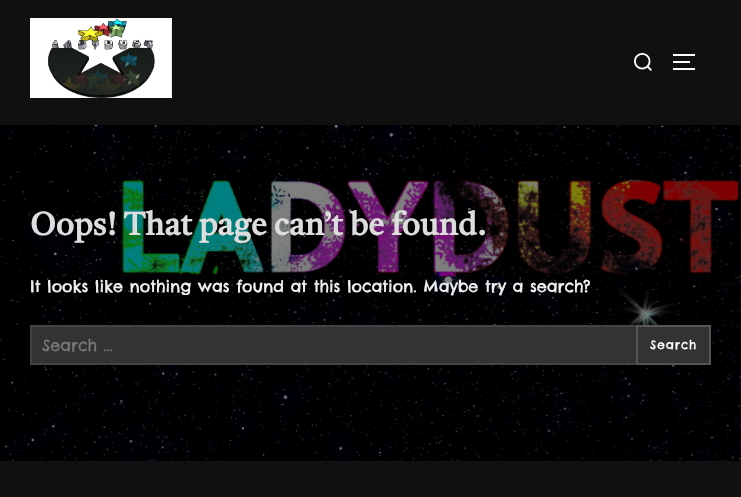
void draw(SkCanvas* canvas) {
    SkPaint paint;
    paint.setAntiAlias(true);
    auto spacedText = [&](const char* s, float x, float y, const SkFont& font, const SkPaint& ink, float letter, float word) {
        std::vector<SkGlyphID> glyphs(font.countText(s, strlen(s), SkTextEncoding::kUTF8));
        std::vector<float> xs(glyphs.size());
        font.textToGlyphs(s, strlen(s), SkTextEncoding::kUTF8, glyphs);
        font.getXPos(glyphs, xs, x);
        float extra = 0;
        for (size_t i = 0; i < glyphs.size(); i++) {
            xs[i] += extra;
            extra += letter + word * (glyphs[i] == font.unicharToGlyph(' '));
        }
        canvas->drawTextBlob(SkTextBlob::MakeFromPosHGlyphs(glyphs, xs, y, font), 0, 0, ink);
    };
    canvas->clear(0xFFFFFFFF);
    canvas->drawImageRect(SkImages::DeferredFromEncodedData(SkData::MakeFromFileName("img1.png")), SkRect::MakeXYWH(0, 125, 741, 336), SkSamplingOptions());
    paint.setColor(0xFF101010);
    canvas->drawRect(SkRect::MakeXYWH(0, 0, 741, 125), paint);
    canvas->drawImageRect(SkImages::DeferredFromEncodedData(SkData::MakeFromFileName("img2.png")), SkRect::MakeXYWH(30, 18, 142, 80), SkSamplingOptions());
    canvas->drawImageRect(SkImages::DeferredFromEncodedData(SkData::MakeFromFileName("img3.png")), SkRect::MakeXYWH(634, 53, 18, 18), SkSamplingOptions());
    paint.setColor(0xFFFFFFFF);
    canvas->drawRect(SkRect::MakeXYWH(673, 54, 22, 2), paint);
    canvas->drawRect(SkRect::MakeXYWH(673, 61, 17, 2), paint);
    canvas->drawRect(SkRect::MakeXYWH(673, 68, 22, 2), paint);
    SkFont font1(fontMgr->matchFamilyStyle("Castoro", SkFontStyle::Bold()), 32);
    font1.setSubpixel(true);
    paint.setColor(0xFFDDDDDD);
    canvas->drawString("Oops! That page can’t be found.", 30, 235, font1, paint);
    SkFont font2(fontMgr->matchFamilyStyle("Chelsea Market", SkFontStyle::Normal()), 16);
    font2.setSubpixel(true);
    paint.setColor(0xFFEEEEEE);
    canvas->drawString("It looks like nothing was found at this location. Maybe try a search?", 30, 292, font2, paint);
    paint.setColor(0xFF333333);
    canvas->drawRect(SkRect::MakeXYWH(31, 326, 679, 38), paint);
    paint.setStyle(SkPaint::kStroke_Style);
    paint.setStrokeWidth(2);
    paint.setColor(0xFF444444);
    canvas->drawRect(SkRect::MakeXYWH(31, 326, 679, 38), paint);
    paint.setStyle(SkPaint::kFill_Style);
    paint.setColor(0xFF757575);
    canvas->drawString("Search …", 42, 351, font2, paint);
    paint.setStyle(SkPaint::kStroke_Style);
    paint.setColor(0xFF555555);
    canvas->drawRect(SkRect::MakeXYWH(637, 326, 73, 38), paint);
    SkFont font3(fontMgr->matchFamilyStyle("Chelsea Market", SkFontStyle::Normal()), 12);
    font3.setSubpixel(true);
    paint.setStyle(SkPaint::kFill_Style);
    paint.setColor(0xFFFFFFFF);
    spacedText("Search", 650, 349, font3, paint, 1, 0);
    paint.setColor(0xFF101010);
    canvas->drawRect(SkRect::MakeXYWH(0, 461, 741, 36), paint);
}
